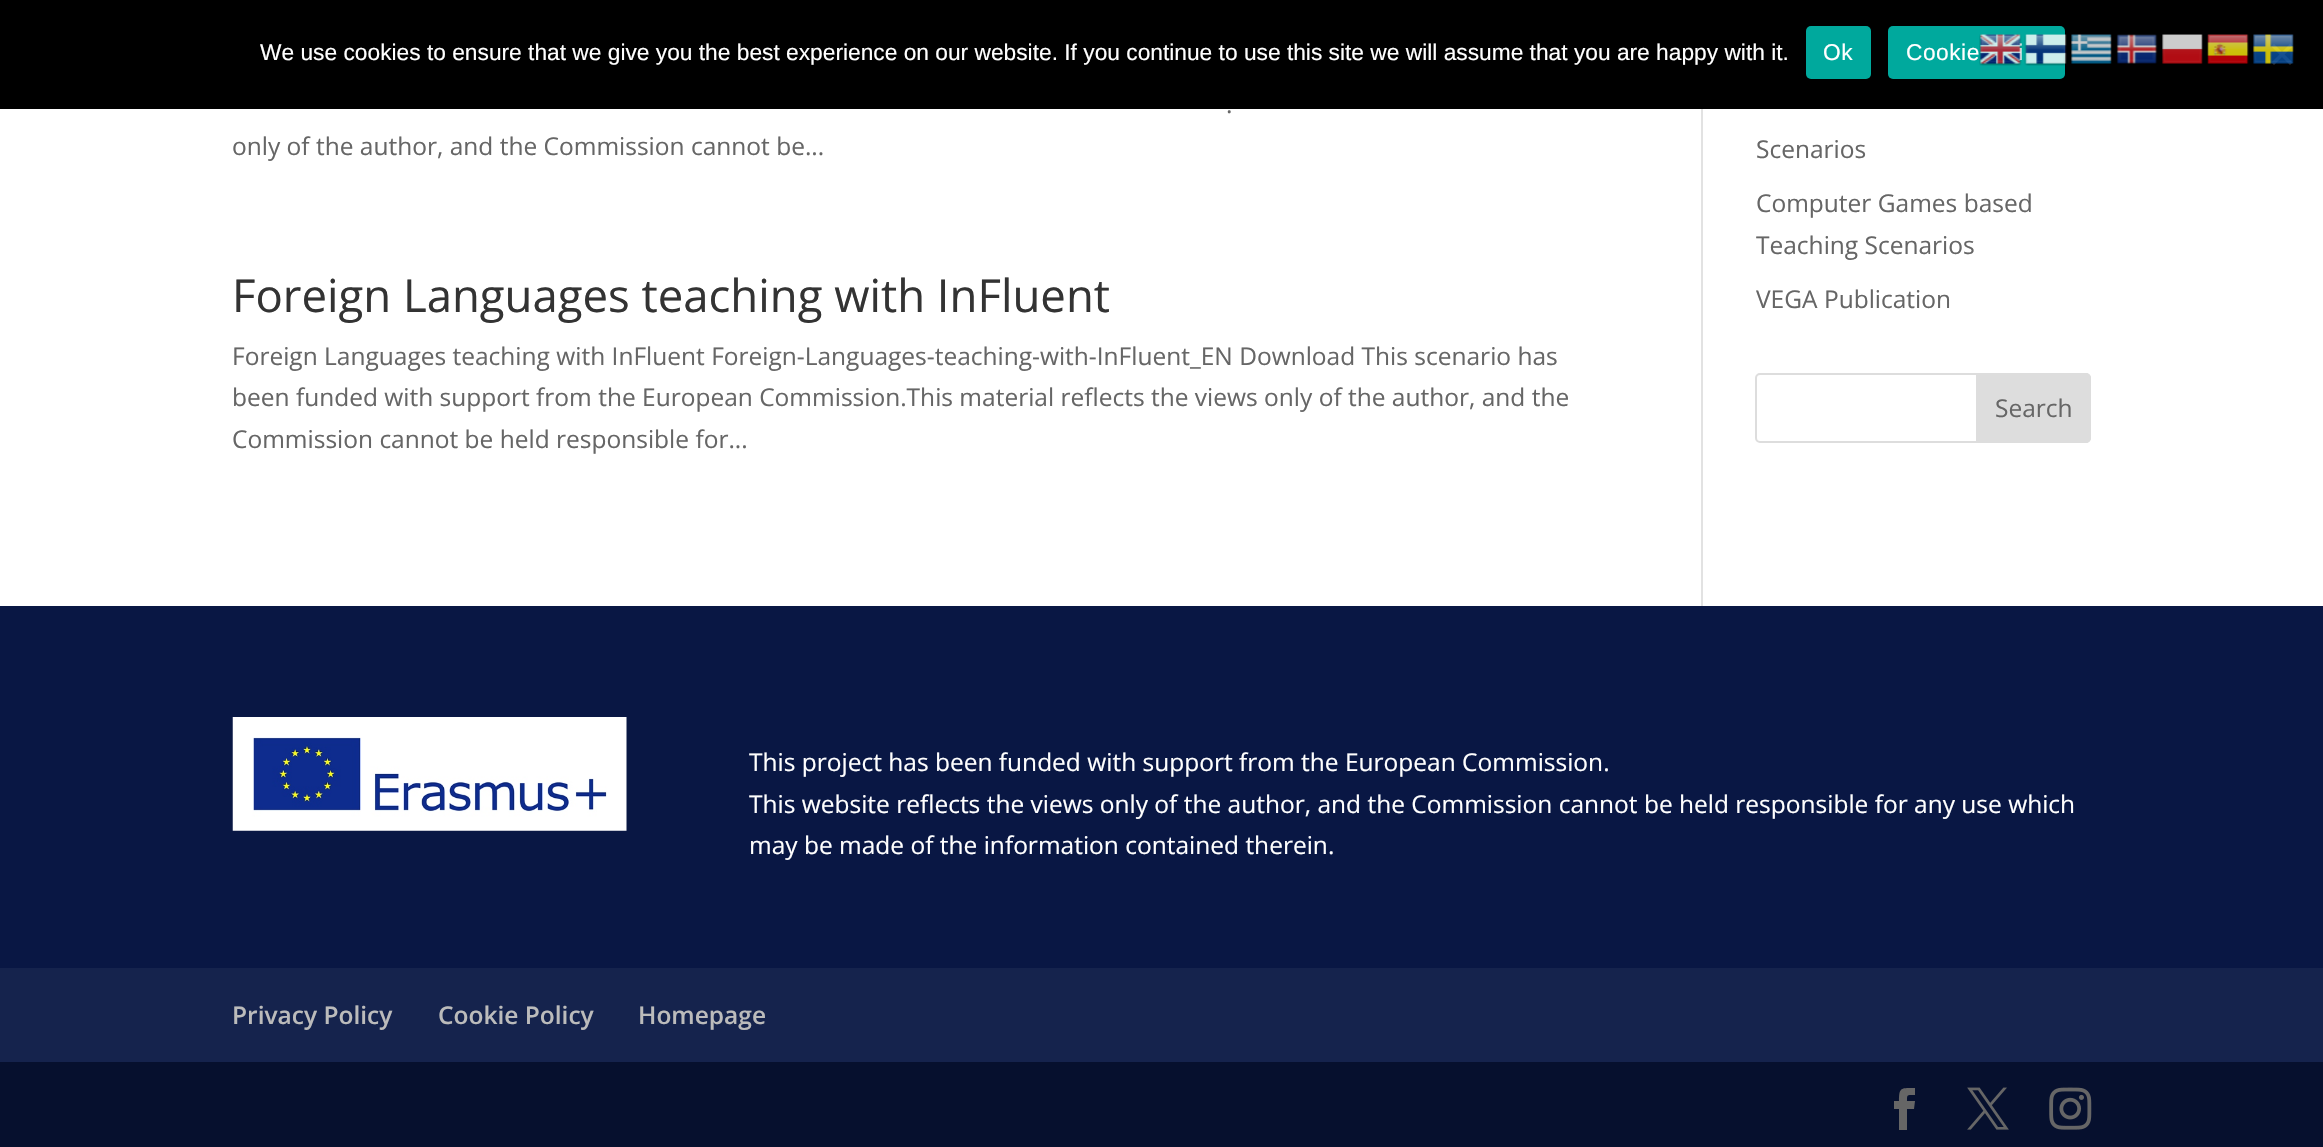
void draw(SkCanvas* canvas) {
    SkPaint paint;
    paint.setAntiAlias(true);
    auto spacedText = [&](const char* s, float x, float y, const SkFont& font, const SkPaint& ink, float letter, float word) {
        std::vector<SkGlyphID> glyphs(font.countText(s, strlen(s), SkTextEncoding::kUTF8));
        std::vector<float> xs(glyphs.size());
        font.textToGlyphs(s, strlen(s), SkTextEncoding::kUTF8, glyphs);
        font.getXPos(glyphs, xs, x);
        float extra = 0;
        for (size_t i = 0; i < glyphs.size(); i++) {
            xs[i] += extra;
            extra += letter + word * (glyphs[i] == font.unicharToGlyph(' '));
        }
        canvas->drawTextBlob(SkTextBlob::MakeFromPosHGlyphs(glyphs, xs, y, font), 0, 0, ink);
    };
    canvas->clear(0xFFFFFFFF);
    paint.setColor(0xFF000000);
    canvas->drawRect(SkRect::MakeXYWH(0, 0, 2323, 109), paint);
    SkFont font1(fontMgr->matchFamilyStyle("Liberation Sans", SkFontStyle::Normal()), 22.75f);
    font1.setSubpixel(true);
    paint.setColor(0xFFFFFFFF);
    canvas->drawString("We use cookies to ensure that we give you the best experience on our website. If you continue to use this site we will assume that you are happy with it.", 260, 60, font1, paint);
    paint.setColor(0xFF00A99D);
    canvas->drawRoundRect(SkRect::MakeXYWH(1806, 26, 65, 53), 5, 5, paint);
    paint.setColor(0xFFFFFFFF);
    spacedText("Ok", 1823, 60, font1, paint, 0.5f, 0);
    paint.setColor(0xFF00A99D);
    canvas->drawRoundRect(SkRect::MakeXYWH(1888, 26, 177, 53), 5, 5, paint);
    paint.setColor(0xFFFFFFFF);
    spacedText("Cookie", 1906, 60, font1, paint, 0.5f, 0);
    spacedText("i", 2018, 60, font1, paint, 0.5f, 0);
    paint.setColor(0xFF404040);
    canvas->drawPath(SkPathBuilder().moveTo(2290, 44).lineTo(2292.5f, 46.5f).lineTo(2274, 65).lineTo(2271.5f, 62.5f).close().detach(), paint);
    canvas->drawPath(SkPathBuilder().moveTo(2271.5f, 46.5f).lineTo(2274, 44).lineTo(2292.5f, 62.5f).lineTo(2290, 65).close().detach(), paint);
    canvas->drawImageRect(SkImages::DeferredFromEncodedData(SkData::MakeFromFileName("img1.png")), SkRect::MakeXYWH(1979, 34, 43, 32), SkSamplingOptions());
    canvas->drawImageRect(SkImages::DeferredFromEncodedData(SkData::MakeFromFileName("img2.png")), SkRect::MakeXYWH(2024, 34, 43, 32), SkSamplingOptions());
    canvas->drawImageRect(SkImages::DeferredFromEncodedData(SkData::MakeFromFileName("img3.png")), SkRect::MakeXYWH(2071, 34, 41, 30), SkSamplingOptions());
    canvas->drawImageRect(SkImages::DeferredFromEncodedData(SkData::MakeFromFileName("img4.png")), SkRect::MakeXYWH(2116, 34, 42, 30), SkSamplingOptions());
    canvas->drawImageRect(SkImages::DeferredFromEncodedData(SkData::MakeFromFileName("img5.png")), SkRect::MakeXYWH(2162, 34, 41, 30), SkSamplingOptions());
    canvas->drawImageRect(SkImages::DeferredFromEncodedData(SkData::MakeFromFileName("img6.png")), SkRect::MakeXYWH(2207, 34, 42, 30), SkSamplingOptions());
    canvas->drawImageRect(SkImages::DeferredFromEncodedData(SkData::MakeFromFileName("img7.png")), SkRect::MakeXYWH(2253, 34, 41, 31), SkSamplingOptions());
    paint.setColor(0xFFE2E2E2);
    canvas->drawRect(SkRect::MakeXYWH(1701, 109, 2, 497), paint);
    SkFont font2(fontMgr->matchFamilyStyle("Open Sans", SkFontStyle::Normal()), 24.5f);
    font2.setSubpixel(true);
    paint.setColor(0xFF666666);
    canvas->drawString(".", 1226, 113, font2, paint);
    canvas->drawString("only of the author, and the Commission cannot be...", 232, 155, font2, paint);
    SkFont font3(fontMgr->matchFamilyStyle("Open Sans", SkFontStyle::Normal()), 45.5f);
    font3.setSubpixel(true);
    paint.setColor(0xFF333333);
    canvas->drawString("Foreign Languages teaching with InFluent", 232, 312, font3, paint);
    paint.setColor(0xFF666666);
    canvas->drawString("Foreign Languages teaching with InFluent Foreign-Languages-teaching-with-InFluent_EN Download This scenario has", 232, 365, font2, paint);
    canvas->drawString("been funded with support from the European Commission.This material reflects the views only of the author, and the", 232, 406, font2, paint);
    canvas->drawString("Commission cannot be held responsible for...", 232, 448, font2, paint);
    canvas->drawString("Scenarios", 1756, 158, font2, paint);
    canvas->drawString("Computer Games based", 1756, 212, font2, paint);
    canvas->drawString("Teaching Scenarios", 1756, 254, font2, paint);
    canvas->drawString("VEGA Publication", 1756, 308, font2, paint);
    paint.setStyle(SkPaint::kStroke_Style);
    paint.setStrokeWidth(2);
    paint.setColor(0xFFDDDDDD);
    canvas->drawRoundRect(SkRect::MakeXYWH(1756, 374, 334, 68), 4, 4, paint);
    paint.setStyle(SkPaint::kFill_Style);
    canvas->drawPath(SkPathBuilder().moveTo(1977, 374).lineTo(2086, 374).cubicTo(2088, 374, 2090, 376, 2090, 378).lineTo(2090, 438).cubicTo(2090, 440, 2088, 442, 2086, 442).lineTo(1977, 442).close().detach(), paint);
    paint.setStyle(SkPaint::kStroke_Style);
    canvas->drawPath(SkPathBuilder().moveTo(1977, 374).lineTo(2086, 374).cubicTo(2088, 374, 2090, 376, 2090, 378).lineTo(2090, 438).cubicTo(2090, 440, 2088, 442, 2086, 442).lineTo(1977, 442).close().detach(), paint);
    paint.setStyle(SkPaint::kFill_Style);
    paint.setColor(0xFF666666);
    canvas->drawString("Search", 1995, 417, font2, paint);
    paint.setColor(0xFF091744);
    canvas->drawRect(SkRect::MakeXYWH(0, 606, 2323, 362), paint);
    canvas->drawImageRect(SkImages::DeferredFromEncodedData(SkData::MakeFromFileName("img8.png")), SkRect::MakeXYWH(232, 717, 395, 114), SkSamplingOptions());
    paint.setColor(0xFFFFFFFF);
    canvas->drawString("This project has been funded with support from the European Commission.", 749, 771, font2, paint);
    canvas->drawString("This website reflects the views only of the author, and the Commission cannot be held responsible for any use which", 749, 813, font2, paint);
    canvas->drawString("may be made of the information contained therein.", 749, 854, font2, paint);
    paint.setColor(0xFF15234D);
    canvas->drawRect(SkRect::MakeXYWH(0, 968, 2323, 94), paint);
    SkFont font4(fontMgr->matchFamilyStyle("Open Sans", SkFontStyle(600, SkFontStyle::kNormal_Width, SkFontStyle::kUpright_Slant)), 24.5f);
    font4.setSubpixel(true);
    paint.setColor(0xFFBBBBBB);
    canvas->drawString("Privacy Policy", 232, 1024, font4, paint);
    canvas->drawString("Cookie Policy", 438, 1024, font4, paint);
    canvas->drawString("Homepage", 638, 1024, font4, paint);
    paint.setColor(0xFF06102E);
    canvas->drawRect(SkRect::MakeXYWH(0, 1062, 2323, 85), paint);
    paint.setColor(0xFF666666);
    canvas->drawPath(SkPathBuilder().moveTo(1899, 1130).lineTo(1907, 1130).lineTo(1907, 1109).lineTo(1914, 1109).lineTo(1915, 1101).lineTo(1907, 1101).cubicTo(1907, 1094, 1907, 1095, 1915, 1095).lineTo(1915, 1088).cubicTo(1901, 1088, 1899, 1087, 1899, 1101).lineTo(1894, 1101).lineTo(1894, 1109).lineTo(1899, 1109).close().detach(), paint);
    canvas->drawImageRect(SkImages::DeferredFromEncodedData(SkData::MakeFromFileName("img9.png")), SkRect::MakeXYWH(1967, 1087, 42, 43), SkSamplingOptions());
    canvas->drawImageRect(SkImages::DeferredFromEncodedData(SkData::MakeFromFileName("img10.png")), SkRect::MakeXYWH(2049, 1087, 43, 43), SkSamplingOptions());
}
